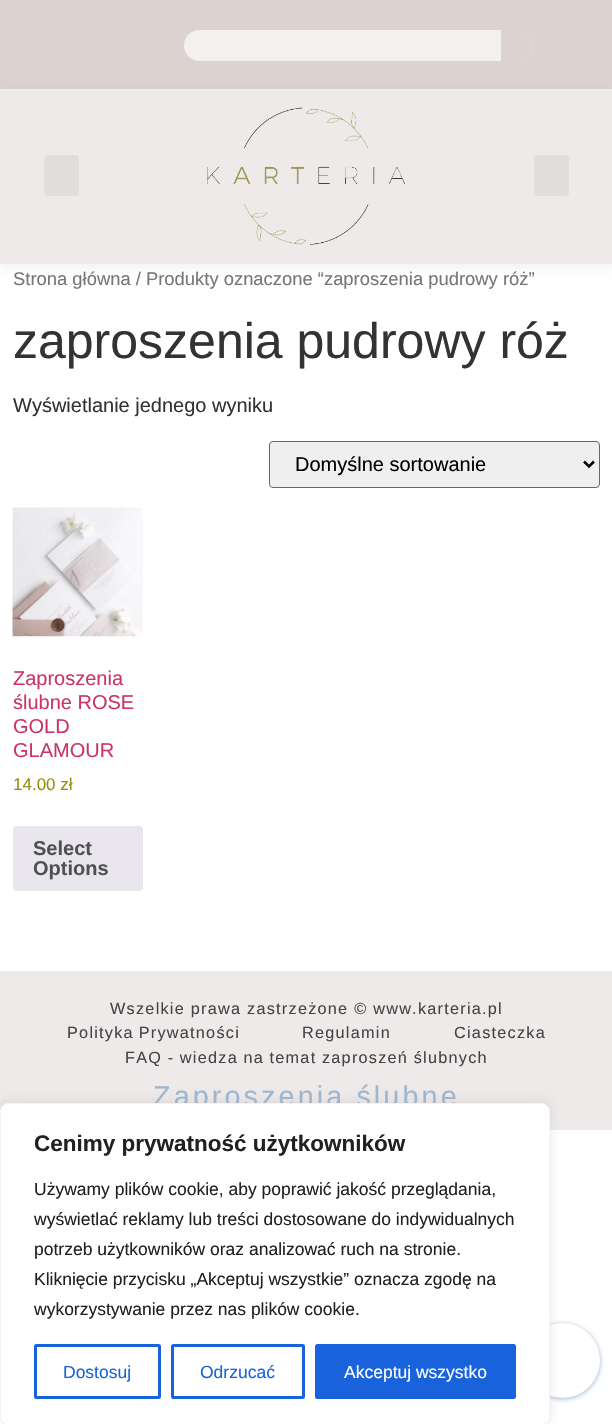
void draw(SkCanvas* canvas) {
    SkPaint paint;
    paint.setAntiAlias(true);
    auto spacedText = [&](const char* s, float x, float y, const SkFont& font, const SkPaint& ink, float letter, float word) {
        std::vector<SkGlyphID> glyphs(font.countText(s, strlen(s), SkTextEncoding::kUTF8));
        std::vector<float> xs(glyphs.size());
        font.textToGlyphs(s, strlen(s), SkTextEncoding::kUTF8, glyphs);
        font.getXPos(glyphs, xs, x);
        float extra = 0;
        for (size_t i = 0; i < glyphs.size(); i++) {
            xs[i] += extra;
            extra += letter + word * (glyphs[i] == font.unicharToGlyph(' '));
        }
        canvas->drawTextBlob(SkTextBlob::MakeFromPosHGlyphs(glyphs, xs, y, font), 0, 0, ink);
    };
    canvas->clear(0xFFFFFFFF);
    paint.setColor(0xFFDCD2D0);
    canvas->drawRect(SkRect::MakeXYWH(0, 0, 612, 89), paint);
    paint.setColor(0xFFF3F0EF);
    canvas->drawRoundRect(SkRect::MakeXYWH(184, 30, 349, 31), 15.5f, 15.5f, paint);
    paint.setColor(0xFFDCD2D0);
    canvas->drawPath(SkPathBuilder().moveTo(501, 30).lineTo(517.5f, 30).cubicTo(526, 30, 533, 37, 533, 45.5f).cubicTo(533, 54, 526, 61, 517.5f, 61).lineTo(501, 61).close().detach(), paint);
    paint.setColor(0x0D000000);
    paint.setMaskFilter(SkMaskFilter::MakeBlur(kNormal_SkBlurStyle, 6));
    canvas->drawRect(SkRect::MakeXYWH(0, 93, 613, 175), paint);
    paint.setMaskFilter(nullptr);
    paint.setColor(0xFFEEEAE9);
    canvas->drawRect(SkRect::MakeXYWH(0, 89, 612, 175), paint);
    paint.setColor(0xFFE2DEDD);
    canvas->drawRoundRect(SkRect::MakeXYWH(44, 155, 35, 41), 4, 4, paint);
    canvas->drawImageRect(SkImages::DeferredFromEncodedData(SkData::MakeFromFileName("img1.png")), SkRect::MakeXYWH(207, 107, 198, 138), SkSamplingOptions());
    canvas->drawRoundRect(SkRect::MakeXYWH(534, 155, 35, 41), 4, 4, paint);
    SkFont font1(fontMgr->matchFamilyStyle("Liberation Sans", SkFontStyle::Normal()), 18.4f);
    font1.setSubpixel(true);
    paint.setColor(0xFF767676);
    canvas->drawString("Strona główna / Produkty oznaczone “zaproszenia pudrowy róż”", 13, 285, font1, paint);
    SkFont font2(fontMgr->matchFamilyStyle("Liberation Sans", SkFontStyle::Normal()), 50);
    font2.setSubpixel(true);
    paint.setColor(0xFF333333);
    canvas->drawString("zaproszenia pudrowy róż", 13, 358, font2, paint);
    SkFont font3(fontMgr->matchFamilyStyle("Liberation Sans", SkFontStyle::Normal()), 20);
    font3.setSubpixel(true);
    canvas->drawString("Wyświetlanie jednego wyniku", 13, 412, font3, paint);
    paint.setColor(0xFFEFEFEF);
    canvas->drawRoundRect(SkRect::MakeXYWH(269.5f, 441.5f, 330, 46), 3.5f, 3.5f, paint);
    paint.setStyle(SkPaint::kStroke_Style);
    paint.setStrokeWidth(1);
    paint.setColor(0xFF666666);
    canvas->drawRoundRect(SkRect::MakeXYWH(269.5f, 441.5f, 330, 46), 3.5f, 3.5f, paint);
    paint.setStrokeWidth(2.5f);
    paint.setColor(0xFF000000);
    canvas->drawPath(SkPathBuilder().moveTo(584, 461.5f).lineTo(589, 466.5f).lineTo(594, 461.5f).detach(), paint);
    paint.setStyle(SkPaint::kFill_Style);
    canvas->drawString("Domyślne sortowanie", 295, 471, font3, paint);
    canvas->drawImageRect(SkImages::DeferredFromEncodedData(SkData::MakeFromFileName("img2.png")), SkRect::MakeXYWH(12, 507, 131, 130), SkSamplingOptions());
    paint.setColor(0xFFCC3366);
    canvas->drawString("Zaproszenia", 13, 685, font3, paint);
    canvas->drawString("ślubne ROSE", 13, 709, font3, paint);
    canvas->drawString("GOLD", 13, 733, font3, paint);
    canvas->drawString("GLAMOUR", 13, 757, font3, paint);
    SkFont font4(fontMgr->matchFamilyStyle("Liberation Sans", SkFontStyle::Normal()), 17);
    font4.setSubpixel(true);
    paint.setColor(0xFF958E09);
    canvas->drawString("14.00 zł", 13, 790, font4, paint);
    paint.setColor(0xFFE9E6ED);
    canvas->drawRoundRect(SkRect::MakeXYWH(13, 826, 130, 65), 4, 4, paint);
    SkFont font5(fontMgr->matchFamilyStyle("Liberation Sans", SkFontStyle::Bold()), 20);
    font5.setSubpixel(true);
    paint.setColor(0xFF515151);
    canvas->drawString("Select", 33, 855, font5, paint);
    canvas->drawString("Options", 33, 875, font5, paint);
    paint.setColor(0xFFEEEAE9);
    canvas->drawRect(SkRect::MakeXYWH(0, 971, 612, 159), paint);
    SkFont font6(fontMgr->matchFamilyStyle("Liberation Sans", SkFontStyle::Normal()), 16.25f);
    font6.setSubpixel(true);
    paint.setColor(0xFF444444);
    spacedText("Wszelkie prawa zastrzeżone © www.karteria.pl", 110, 1014, font6, paint, 1.25f, 0);
    spacedText("Polityka Prywatności", 67, 1038, font6, paint, 1.25f, -1);
    spacedText("Regulamin", 302, 1038, font6, paint, 1.25f, 0);
    spacedText("Ciasteczka", 454, 1038, font6, paint, 1.25f, 0);
    spacedText("FAQ - wiedza na temat zaproszeń ślubnych", 125, 1063, font6, paint, 1.25f, -0.25f);
    SkFont font7(fontMgr->matchFamilyStyle("Liberation Sans", SkFontStyle::Normal()), 28.75f);
    font7.setSubpixel(true);
    paint.setColor(0xFF9EB6D0);
    spacedText("Zaproszenia ślubne", 153, 1106, font7, paint, 3.1f, 0);
    paint.setMaskFilter(SkMaskFilter::MakeBlur(kNormal_SkBlurStyle, 2.5f));
    canvas->drawRoundRect(SkRect::MakeXYWH(525, 1324, 75, 75), 37.5f, 37.5f, paint);
    paint.setMaskFilter(nullptr);
    paint.setColor(0xFFFFFFFF);
    canvas->drawCircle(562.5f, 1360.5f, 37.5f, paint);
    paint.setColor(0x4DACABAB);
    paint.setMaskFilter(SkMaskFilter::MakeBlur(kNormal_SkBlurStyle, 6));
    canvas->drawRoundRect(SkRect::MakeXYWH(0, 1101, 550, 323), 8, 8, paint);
    paint.setMaskFilter(nullptr);
    paint.setColor(0xFFFFFFFF);
    canvas->drawRoundRect(SkRect::MakeXYWH(0.5f, 1103.5f, 549, 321), 7.5f, 7.5f, paint);
    paint.setStyle(SkPaint::kStroke_Style);
    paint.setStrokeWidth(1);
    paint.setColor(0xFFF4F4F4);
    canvas->drawRoundRect(SkRect::MakeXYWH(0.5f, 1103.5f, 549, 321), 7.5f, 7.5f, paint);
    SkFont font8(fontMgr->matchFamilyStyle("Liberation Sans", SkFontStyle::Bold()), 22.5f);
    font8.setSubpixel(true);
    paint.setStyle(SkPaint::kFill_Style);
    paint.setColor(0xFF212121);
    canvas->drawString("Cenimy prywatność użytkowników", 34, 1151, font8, paint);
    SkFont font9(fontMgr->matchFamilyStyle("Liberation Sans", SkFontStyle::Normal()), 17.5f);
    font9.setSubpixel(true);
    canvas->drawString("Używamy plików cookie, aby poprawić jakość przeglądania,", 34, 1195, font9, paint);
    canvas->drawString("wyświetlać reklamy lub treści dostosowane do indywidualnych", 34, 1225, font9, paint);
    canvas->drawString("potrzeb użytkowników oraz analizować ruch na stronie.", 34, 1255, font9, paint);
    canvas->drawString("Kliknięcie przycisku „Akceptuj wszystkie” oznacza zgodę na", 34, 1285, font9, paint);
    canvas->drawString("wykorzystywanie przez nas plików cookie.", 34, 1315, font9, paint);
    paint.setStyle(SkPaint::kStroke_Style);
    paint.setStrokeWidth(3);
    paint.setColor(0xFF1863DC);
    canvas->drawRoundRect(SkRect::MakeXYWH(35.5f, 1345.5f, 124, 52), 1, 1, paint);
    paint.setStyle(SkPaint::kFill_Style);
    canvas->drawString("Dostosuj", 63, 1378, font9, paint);
    paint.setStyle(SkPaint::kStroke_Style);
    canvas->drawRoundRect(SkRect::MakeXYWH(172.5f, 1345.5f, 131, 52), 1, 1, paint);
    paint.setStyle(SkPaint::kFill_Style);
    canvas->drawString("Odrzucać", 200, 1378, font9, paint);
    canvas->drawRoundRect(SkRect::MakeXYWH(316.5f, 1345.5f, 198, 52), 1, 1, paint);
    paint.setStyle(SkPaint::kStroke_Style);
    canvas->drawRoundRect(SkRect::MakeXYWH(316.5f, 1345.5f, 198, 52), 1, 1, paint);
    paint.setStyle(SkPaint::kFill_Style);
    paint.setColor(0xFFFFFFFF);
    canvas->drawString("Akceptuj wszystko", 344, 1378, font9, paint);
}
